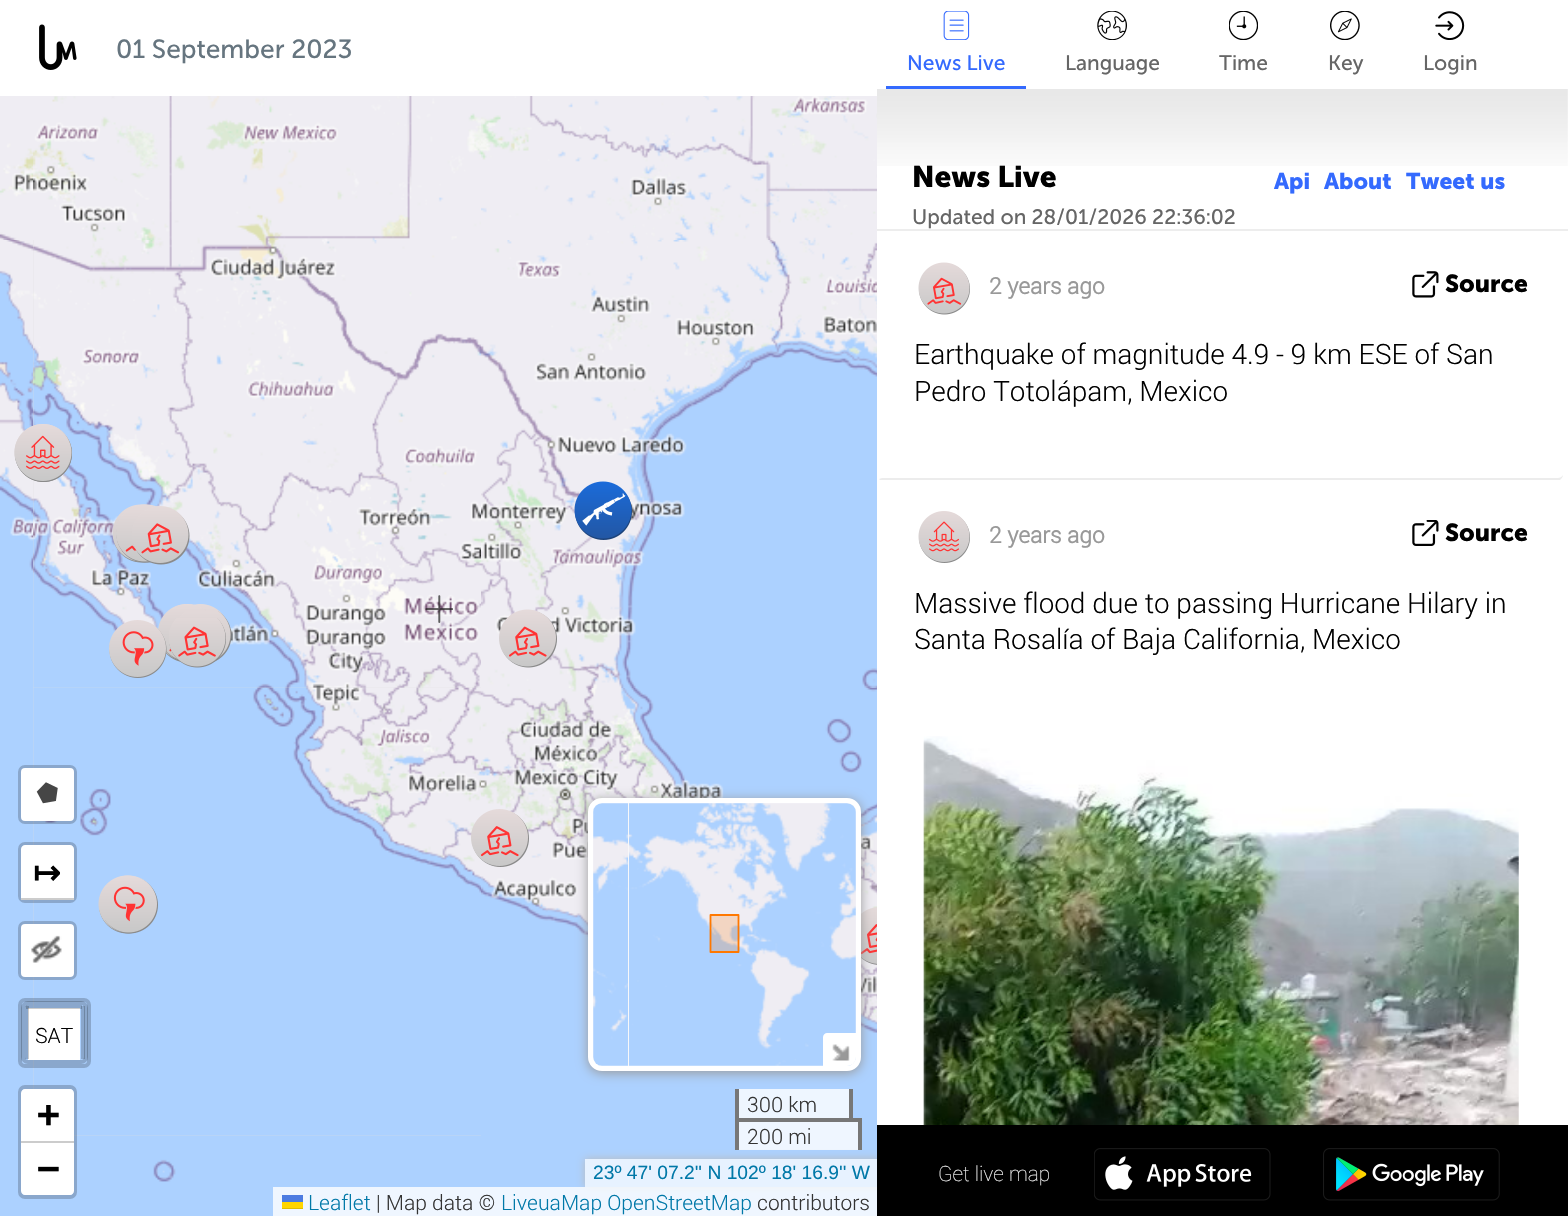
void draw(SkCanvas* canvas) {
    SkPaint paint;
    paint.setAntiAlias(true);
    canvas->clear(0xFFDDDDDD);
    paint.setColor(0xFFFFFFFF);
    canvas->drawRect(SkRect::MakeXYWH(0, 0, 877, 96), paint);
    canvas->drawImageRect(SkImages::DeferredFromEncodedData(SkData::MakeFromFileName("img1.png")), SkRect::MakeXYWH(39, 24, 38, 46), SkSamplingOptions());
    SkFont font1(fontMgr->matchFamilyStyle("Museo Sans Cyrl", SkFontStyle::Normal()), 26.25f);
    font1.setSubpixel(true);
    paint.setColor(0xFF66757F);
    canvas->drawString("01 September 2023", 116, 58, font1, paint);
    canvas->drawImageRect(SkImages::DeferredFromEncodedData(SkData::MakeFromFileName("img2.png")), SkRect::MakeXYWH(0, 96, 33, 144), SkSamplingOptions());
    canvas->drawImageRect(SkImages::DeferredFromEncodedData(SkData::MakeFromFileName("img3.png")), SkRect::MakeXYWH(33, 96, 448, 144), SkSamplingOptions());
    canvas->drawImageRect(SkImages::DeferredFromEncodedData(SkData::MakeFromFileName("img4.png")), SkRect::MakeXYWH(481, 96, 396, 144), SkSamplingOptions());
    canvas->drawImageRect(SkImages::DeferredFromEncodedData(SkData::MakeFromFileName("img5.png")), SkRect::MakeXYWH(0, 240, 33, 448), SkSamplingOptions());
    canvas->drawImageRect(SkImages::DeferredFromEncodedData(SkData::MakeFromFileName("img6.png")), SkRect::MakeXYWH(33, 240, 448, 448), SkSamplingOptions());
    canvas->drawImageRect(SkImages::DeferredFromEncodedData(SkData::MakeFromFileName("img7.png")), SkRect::MakeXYWH(481, 240, 396, 448), SkSamplingOptions());
    paint.setColor(0xFFACD1FF);
    canvas->drawRect(SkRect::MakeXYWH(0, 688, 33, 528), paint);
    canvas->drawImageRect(SkImages::DeferredFromEncodedData(SkData::MakeFromFileName("img8.png")), SkRect::MakeXYWH(33, 687, 448, 449), SkSamplingOptions());
    canvas->drawImageRect(SkImages::DeferredFromEncodedData(SkData::MakeFromFileName("img9.png")), SkRect::MakeXYWH(481, 688, 396, 448), SkSamplingOptions());
    canvas->drawImageRect(SkImages::DeferredFromEncodedData(SkData::MakeFromFileName("img10.png")), SkRect::MakeXYWH(33, 1136, 448, 80), SkSamplingOptions());
    canvas->drawRect(SkRect::MakeXYWH(481, 1136, 396, 80), paint);
    canvas->drawImageRect(SkImages::DeferredFromEncodedData(SkData::MakeFromFileName("img11.png")), SkRect::MakeXYWH(14, 424, 58, 58), SkSamplingOptions());
    canvas->drawImageRect(SkImages::DeferredFromEncodedData(SkData::MakeFromFileName("img12.png")), SkRect::MakeXYWH(14, 424, 58, 58), SkSamplingOptions());
    canvas->drawImageRect(SkImages::DeferredFromEncodedData(SkData::MakeFromFileName("img13.png")), SkRect::MakeXYWH(112, 504, 35, 59), SkSamplingOptions());
    canvas->drawImageRect(SkImages::DeferredFromEncodedData(SkData::MakeFromFileName("img14.png")), SkRect::MakeXYWH(574, 481, 58, 59), SkSamplingOptions());
    canvas->drawImageRect(SkImages::DeferredFromEncodedData(SkData::MakeFromFileName("img16.png")), SkRect::MakeXYWH(125, 504, 33, 59), SkSamplingOptions());
    canvas->drawImageRect(SkImages::DeferredFromEncodedData(SkData::MakeFromFileName("img15.png")), SkRect::MakeXYWH(116, 504, 40, 59), SkSamplingOptions());
    canvas->drawImageRect(SkImages::DeferredFromEncodedData(SkData::MakeFromFileName("img17.png")), SkRect::MakeXYWH(132, 506, 58, 59), SkSamplingOptions());
    canvas->drawImageRect(SkImages::DeferredFromEncodedData(SkData::MakeFromFileName("img18.png")), SkRect::MakeXYWH(158, 604, 36, 58), SkSamplingOptions());
    canvas->drawImageRect(SkImages::DeferredFromEncodedData(SkData::MakeFromFileName("img20.png")), SkRect::MakeXYWH(193, 604, 33, 15), SkSamplingOptions());
    canvas->drawImageRect(SkImages::DeferredFromEncodedData(SkData::MakeFromFileName("img19.png")), SkRect::MakeXYWH(161, 604, 46, 58), SkSamplingOptions());
    canvas->drawImageRect(SkImages::DeferredFromEncodedData(SkData::MakeFromFileName("img21.png")), SkRect::MakeXYWH(499, 609, 58, 59), SkSamplingOptions());
    canvas->drawImageRect(SkImages::DeferredFromEncodedData(SkData::MakeFromFileName("img22.png")), SkRect::MakeXYWH(178, 611, 54, 52), SkSamplingOptions());
    canvas->drawImageRect(SkImages::DeferredFromEncodedData(SkData::MakeFromFileName("img23.png")), SkRect::MakeXYWH(109, 620, 58, 58), SkSamplingOptions());
    canvas->drawImageRect(SkImages::DeferredFromEncodedData(SkData::MakeFromFileName("img24.png")), SkRect::MakeXYWH(169, 618, 57, 50), SkSamplingOptions());
    canvas->drawImageRect(SkImages::DeferredFromEncodedData(SkData::MakeFromFileName("img25.png")), SkRect::MakeXYWH(471, 809, 58, 58), SkSamplingOptions());
    canvas->drawImageRect(SkImages::DeferredFromEncodedData(SkData::MakeFromFileName("img26.png")), SkRect::MakeXYWH(98, 875, 49, 59), SkSamplingOptions());
    canvas->drawImageRect(SkImages::DeferredFromEncodedData(SkData::MakeFromFileName("img27.png")), SkRect::MakeXYWH(105, 875, 53, 59), SkSamplingOptions());
    canvas->drawImageRect(SkImages::DeferredFromEncodedData(SkData::MakeFromFileName("img28.png")), SkRect::MakeXYWH(861, 907, 16, 58), SkSamplingOptions());
    canvas->drawImageRect(SkImages::DeferredFromEncodedData(SkData::MakeFromFileName("img29.png")), SkRect::MakeXYWH(425, 595, 28, 28), SkSamplingOptions());
    paint.setStyle(SkPaint::kStroke_Style);
    paint.setStrokeWidth(4);
    paint.setColor(0x33000000);
    canvas->drawRoundRect(SkRect::MakeXYWH(20, 767, 55, 55), 5, 5, paint);
    paint.setStyle(SkPaint::kFill_Style);
    paint.setColor(0xFFFFFFFF);
    canvas->drawRoundRect(SkRect::MakeXYWH(21, 768, 53, 53), 4, 4, paint);
    canvas->drawImageRect(SkImages::DeferredFromEncodedData(SkData::MakeFromFileName("img30.png")), SkRect::MakeXYWH(36, 782, 22, 22), SkSamplingOptions());
    paint.setStyle(SkPaint::kStroke_Style);
    paint.setColor(0x33000000);
    canvas->drawRoundRect(SkRect::MakeXYWH(20, 844, 55, 57), 5, 5, paint);
    paint.setStyle(SkPaint::kFill_Style);
    paint.setColor(0xFFFFFFFF);
    canvas->drawPath(SkPathBuilder().moveTo(25, 845).lineTo(70, 845).cubicTo(72, 845, 74, 847, 74, 849).lineTo(74, 900).lineTo(21, 900).lineTo(21, 849).cubicTo(21, 847, 23, 845, 25, 845).close().detach(), paint);
    paint.setColor(0xFFCCCCCC);
    canvas->drawRect(SkRect::MakeXYWH(21, 898, 53, 2), paint);
    SkFont font2(fontMgr->matchFamilyStyle("DejaVu Sans", SkFontStyle::Bold()), 33);
    font2.setSubpixel(true);
    paint.setColor(0xFF000000);
    canvas->drawString("↦", 33, 884, font2, paint);
    paint.setStyle(SkPaint::kStroke_Style);
    paint.setColor(0x33000000);
    canvas->drawRoundRect(SkRect::MakeXYWH(20, 923, 55, 55), 5, 5, paint);
    paint.setStyle(SkPaint::kFill_Style);
    paint.setColor(0xFFFFFFFF);
    canvas->drawRoundRect(SkRect::MakeXYWH(21, 924, 53, 53), 4, 4, paint);
    canvas->drawImageRect(SkImages::DeferredFromEncodedData(SkData::MakeFromFileName("img31.png")), SkRect::MakeXYWH(31, 935, 31, 28), SkSamplingOptions());
    paint.setStyle(SkPaint::kStroke_Style);
    paint.setColor(0x33000000);
    canvas->drawRoundRect(SkRect::MakeXYWH(20, 1000, 69, 66), 5, 5, paint);
    canvas->drawRoundRect(SkRect::MakeXYWH(23, 1003, 63, 59), 5, 5, paint);
    paint.setStyle(SkPaint::kFill_Style);
    paint.setColor(0xFFFFFFFF);
    canvas->drawPath(SkPathBuilder().moveTo(28, 1008).lineTo(80, 1008).lineTo(80, 1060).lineTo(28, 1060).lineTo(28, 1057).close().detach(), paint);
    paint.setColor(0x33000000);
    canvas->drawRect(SkRect::MakeXYWH(26, 1005, 56, 4), paint);
    canvas->drawRect(SkRect::MakeXYWH(81, 1006, 4, 53), paint);
    canvas->drawRect(SkRect::MakeXYWH(25, 1006, 4, 53), paint);
    SkFont font3(fontMgr->matchFamilyStyle("Roboto", SkFontStyle(300, SkFontStyle::kNormal_Width, SkFontStyle::kUpright_Slant)), 21);
    font3.setSubpixel(true);
    paint.setColor(0xFF000000);
    canvas->drawString("SAT", 35, 1043, font3, paint);
    paint.setStyle(SkPaint::kStroke_Style);
    paint.setColor(0x33000000);
    canvas->drawRoundRect(SkRect::MakeXYWH(20, 1087, 55, 110), 5, 5, paint);
    paint.setStyle(SkPaint::kFill_Style);
    paint.setColor(0xFFFFFFFF);
    canvas->drawPath(SkPathBuilder().moveTo(25, 1089).lineTo(70, 1089).cubicTo(72, 1089, 74, 1091, 74, 1093).lineTo(74, 1143).lineTo(21, 1143).lineTo(21, 1093).cubicTo(21, 1091, 23, 1089, 25, 1089).close().detach(), paint);
    paint.setColor(0xFFCCCCCC);
    canvas->drawRect(SkRect::MakeXYWH(21, 1141, 53, 2), paint);
    SkFont font4(fontMgr->matchFamilyStyle("DejaVu Sans Mono", SkFontStyle::Bold()), 38);
    font4.setSubpixel(true);
    paint.setColor(0xFF000000);
    canvas->drawString("+", 37, 1127, font4, paint);
    paint.setColor(0xFFFFFFFF);
    canvas->drawPath(SkPathBuilder().moveTo(21, 1143).lineTo(74, 1143).lineTo(74, 1191).cubicTo(74, 1193, 72, 1195, 70, 1195).lineTo(25, 1195).cubicTo(23, 1195, 21, 1193, 21, 1191).close().detach(), paint);
    paint.setColor(0xFF000000);
    canvas->drawString("−", 37, 1181, font4, paint);
    paint.setColor(0xFF999999);
    paint.setMaskFilter(SkMaskFilter::MakeBlur(kNormal_SkBlurStyle, 6));
    canvas->drawRoundRect(SkRect::MakeXYWH(588, 800, 273, 273), 14, 14, paint);
    paint.setMaskFilter(nullptr);
    paint.setColor(0xFFF8F8F9);
    canvas->drawRoundRect(SkRect::MakeXYWH(590.5f, 800.5f, 268, 268), 11.5f, 11.5f, paint);
    paint.setStyle(SkPaint::kStroke_Style);
    paint.setStrokeWidth(5);
    paint.setColor(0xFFFFFFFF);
    canvas->drawRoundRect(SkRect::MakeXYWH(590.5f, 800.5f, 268, 268), 11.5f, 11.5f, paint);
    canvas->drawImageRect(SkImages::DeferredFromEncodedData(SkData::MakeFromFileName("img32.png")), SkRect::MakeXYWH(593, 803, 35, 263), SkSamplingOptions());
    canvas->drawImageRect(SkImages::DeferredFromEncodedData(SkData::MakeFromFileName("img33.png")), SkRect::MakeXYWH(629, 803, 227, 263), SkSamplingOptions());
    paint.setStyle(SkPaint::kFill_Style);
    paint.setColor(0x33FF7800);
    canvas->drawRect(SkRect::MakeXYWH(711, 915, 27, 37), paint);
    paint.setStyle(SkPaint::kStroke_Style);
    paint.setStrokeWidth(1.8f);
    paint.setStrokeCap(SkPaint::kRound_Cap);
    paint.setStrokeJoin(SkPaint::kRound_Join);
    paint.setColor(0xFFFF7800);
    canvas->drawPath(SkPathBuilder().moveTo(710.5f, 952).lineTo(710.5f, 915).lineTo(738.5f, 915).lineTo(738.5f, 952).close().detach(), paint);
    paint.setStyle(SkPaint::kFill_Style);
    paint.setColor(0xFFFFFFFF);
    canvas->drawPath(SkPathBuilder().moveTo(827, 1033).lineTo(856, 1033).lineTo(856, 1057).cubicTo(856, 1062, 852, 1066, 847, 1066).lineTo(823, 1066).lineTo(823, 1037).cubicTo(823, 1035, 825, 1033, 827, 1033).close().detach(), paint);
    canvas->drawImageRect(SkImages::DeferredFromEncodedData(SkData::MakeFromFileName("img34.png")), SkRect::MakeXYWH(832, 1044, 18, 17), SkSamplingOptions());
    paint.setColor(0xFFEEF6FF);
    canvas->drawRect(SkRect::MakeXYWH(739, 1089, 110, 29), paint);
    paint.setColor(0xFF777777);
    canvas->drawRect(SkRect::MakeXYWH(849, 1089, 4, 33), paint);
    canvas->drawRect(SkRect::MakeXYWH(735, 1089, 4, 33), paint);
    paint.setColor(0xFF333333);
    canvas->drawString("300 km", 747, 1112, font3, paint);
    paint.setColor(0xCCFFFFFF);
    canvas->drawRect(SkRect::MakeXYWH(739, 1122, 119, 28), paint);
    paint.setColor(0xFF777777);
    canvas->drawRect(SkRect::MakeXYWH(735, 1118, 126, 4), paint);
    canvas->drawRect(SkRect::MakeXYWH(858, 1118, 4, 32), paint);
    canvas->drawRect(SkRect::MakeXYWH(735, 1118, 4, 32), paint);
    paint.setColor(0xFF333333);
    canvas->drawString("200 mi", 747, 1144, font3, paint);
    canvas->save();
    canvas->clipPath(SkPathBuilder(SkPathFillType::kEvenOdd).moveTo(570, 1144).lineTo(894, 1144).lineTo(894, 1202).lineTo(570, 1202).close().moveTo(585, 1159).lineTo(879, 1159).lineTo(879, 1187).lineTo(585, 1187).close().detach(), true);
    paint.setColor(0xFFBBBBBB);
    paint.setMaskFilter(SkMaskFilter::MakeBlur(kNormal_SkBlurStyle, 4.5f));
    canvas->drawRect(SkRect::MakeXYWH(585, 1159, 294, 28), paint);
    paint.setMaskFilter(nullptr);
    canvas->restore();
    paint.setColor(0xB3FFFFFF);
    canvas->drawRect(SkRect::MakeXYWH(585, 1159, 292, 28), paint);
    SkFont font5(fontMgr->matchFamilyStyle("Liberation Sans", SkFontStyle::Normal()), 19.25f);
    font5.setSubpixel(true);
    paint.setColor(0xFF0078A8);
    canvas->drawString("23º 47' 07.2'' N 102º 18' 16.9'' W", 593, 1179, font5, paint);
    paint.setColor(0xCCFFFFFF);
    canvas->drawRect(SkRect::MakeXYWH(273, 1187, 604, 29), paint);
    paint.setColor(0xFF0078A8);
    canvas->drawString("Leaflet", 308, 1210, font3, paint);
    paint.setColor(0xFF4C7BE1);
    canvas->drawRect(SkRect::MakeXYWH(282, 1195, 21, 7), paint);
    paint.setColor(0xFFFFD500);
    canvas->drawRect(SkRect::MakeXYWH(282, 1202, 21, 6), paint);
    paint.setColor(0xFFE0BC00);
    canvas->drawRect(SkRect::MakeXYWH(282, 1208, 21, 1), paint);
    paint.setColor(0xFF333333);
    canvas->drawString("| Map data ©", 376, 1210, font3, paint);
    paint.setColor(0xFF0078A8);
    canvas->drawString("LiveuaMap OpenStreetMap", 501, 1210, font3, paint);
    paint.setColor(0xFF333333);
    canvas->drawString("contributors", 757, 1210, font3, paint);
    paint.setColor(0xFFFFFFFF);
    canvas->drawRect(SkRect::MakeXYWH(877, 0, 691, 1125), paint);
    paint.setColor(0xFF346AFE);
    canvas->drawRect(SkRect::MakeXYWH(886, 86, 140, 3), paint);
    canvas->drawImageRect(SkImages::DeferredFromEncodedData(SkData::MakeFromFileName("img35.png")), SkRect::MakeXYWH(943, 11, 27, 29), SkSamplingOptions());
    SkFont font6(fontMgr->matchFamilyStyle("Museo Sans Cyrl", SkFontStyle::Normal()), 21);
    font6.setSubpixel(true);
    canvas->drawString("News Live", 907, 70, font6, paint);
    canvas->drawImageRect(SkImages::DeferredFromEncodedData(SkData::MakeFromFileName("img36.png")), SkRect::MakeXYWH(1097, 11, 30, 29), SkSamplingOptions());
    paint.setColor(0xFF666666);
    canvas->drawString("Language", 1065, 70, font6, paint);
    canvas->drawImageRect(SkImages::DeferredFromEncodedData(SkData::MakeFromFileName("img37.png")), SkRect::MakeXYWH(1229, 11, 29, 29), SkSamplingOptions());
    canvas->drawString("Time", 1219, 70, font6, paint);
    canvas->drawImageRect(SkImages::DeferredFromEncodedData(SkData::MakeFromFileName("img38.png")), SkRect::MakeXYWH(1330, 11, 30, 29), SkSamplingOptions());
    canvas->drawString("Key", 1328, 70, font6, paint);
    canvas->drawImageRect(SkImages::DeferredFromEncodedData(SkData::MakeFromFileName("img39.png")), SkRect::MakeXYWH(1435, 11, 30, 29), SkSamplingOptions());
    canvas->drawString("Login", 1423, 70, font6, paint);
    canvas->drawImageRect(SkImages::DeferredFromEncodedData(SkData::MakeFromFileName("img40.png")), SkRect::MakeXYWH(877, 89, 691, 77), SkSamplingOptions());
    paint.setColor(0xFFEDEDED);
    canvas->drawRect(SkRect::MakeXYWH(877, 229, 691, 2), paint);
    SkFont font7(fontMgr->matchFamilyStyle("Museo Sans Cyrl", SkFontStyle::Bold()), 29.75f);
    font7.setSubpixel(true);
    paint.setColor(0xFF000000);
    canvas->drawString("News Live", 912, 187, font7, paint);
    paint.setColor(0xFF666666);
    canvas->drawString("Updated on 28/01/2026 22:36:02", 912, 224, font6, paint);
    SkFont font8(fontMgr->matchFamilyStyle("Museo Sans Cyrl", SkFontStyle::Bold()), 22.75f);
    font8.setSubpixel(true);
    paint.setColor(0xFF346AFE);
    canvas->drawString("Api", 1274, 189, font8, paint);
    canvas->drawString("About", 1324, 189, font8, paint);
    canvas->drawString("Tweet us", 1406, 189, font8, paint);
    paint.setColor(0xFFECECEC);
    canvas->drawPath(SkPathBuilder().moveTo(880, 480).lineTo(879, 479).lineTo(882, 478).lineTo(1558, 478).cubicTo(1560, 478, 1562, 477, 1563, 475).cubicTo(1563, 477, 1561, 479, 1560, 480).close().detach(), paint);
    canvas->drawImageRect(SkImages::DeferredFromEncodedData(SkData::MakeFromFileName("img41.png")), SkRect::MakeXYWH(918, 262, 52, 53), SkSamplingOptions());
    SkFont font9(fontMgr->matchFamilyStyle("Roboto", SkFontStyle::Bold()), 22.75f);
    font9.setSubpixel(true);
    paint.setColor(0xFF999999);
    canvas->drawString("2 years ago", 989, 294, font9, paint);
    canvas->drawImageRect(SkImages::DeferredFromEncodedData(SkData::MakeFromFileName("img42.png")), SkRect::MakeXYWH(1412, 271, 27, 27), SkSamplingOptions());
    SkFont font10(fontMgr->matchFamilyStyle("Museo Sans Cyrl", SkFontStyle::Bold()), 24.5f);
    font10.setSubpixel(true);
    paint.setColor(0xFF000000);
    canvas->drawString("Source", 1445, 292, font10, paint);
    SkFont font11(fontMgr->matchFamilyStyle("Roboto", SkFontStyle(300, SkFontStyle::kNormal_Width, SkFontStyle::kUpright_Slant)), 28);
    font11.setSubpixel(true);
    canvas->drawString("Earthquake of magnitude 4.9 - 9 km ESE of San", 914, 364, font11, paint);
    canvas->drawString("Pedro Totolápam, Mexico", 914, 401, font11, paint);
    canvas->drawImageRect(SkImages::DeferredFromEncodedData(SkData::MakeFromFileName("img43.png")), SkRect::MakeXYWH(918, 511, 52, 52), SkSamplingOptions());
    paint.setColor(0xFF999999);
    canvas->drawString("2 years ago", 989, 543, font9, paint);
    canvas->drawImageRect(SkImages::DeferredFromEncodedData(SkData::MakeFromFileName("img44.png")), SkRect::MakeXYWH(1412, 520, 27, 26), SkSamplingOptions());
    paint.setColor(0xFF000000);
    canvas->drawString("Source", 1445, 541, font10, paint);
    canvas->drawString("Massive flood due to passing Hurricane Hilary in", 914, 613, font11, paint);
    canvas->drawString("Santa Rosalía of Baja California, Mexico", 914, 649, font11, paint);
    canvas->drawImageRect(SkImages::DeferredFromEncodedData(SkData::MakeFromFileName("img45.png")), SkRect::MakeXYWH(923, 736, 596, 389), SkSamplingOptions());
    canvas->drawRect(SkRect::MakeXYWH(877, 1125, 691, 91), paint);
    SkFont font12(fontMgr->matchFamilyStyle("Roboto", SkFontStyle(100, SkFontStyle::kNormal_Width, SkFontStyle::kUpright_Slant)), 21);
    font12.setSubpixel(true);
    paint.setColor(0xFFFFFFFF);
    canvas->drawString("Get live map", 938, 1181, font12, paint);
    canvas->drawImageRect(SkImages::DeferredFromEncodedData(SkData::MakeFromFileName("img46.png")), SkRect::MakeXYWH(1094, 1148, 177, 53), SkSamplingOptions());
    canvas->drawImageRect(SkImages::DeferredFromEncodedData(SkData::MakeFromFileName("img47.png")), SkRect::MakeXYWH(1323, 1148, 177, 53), SkSamplingOptions());
}
